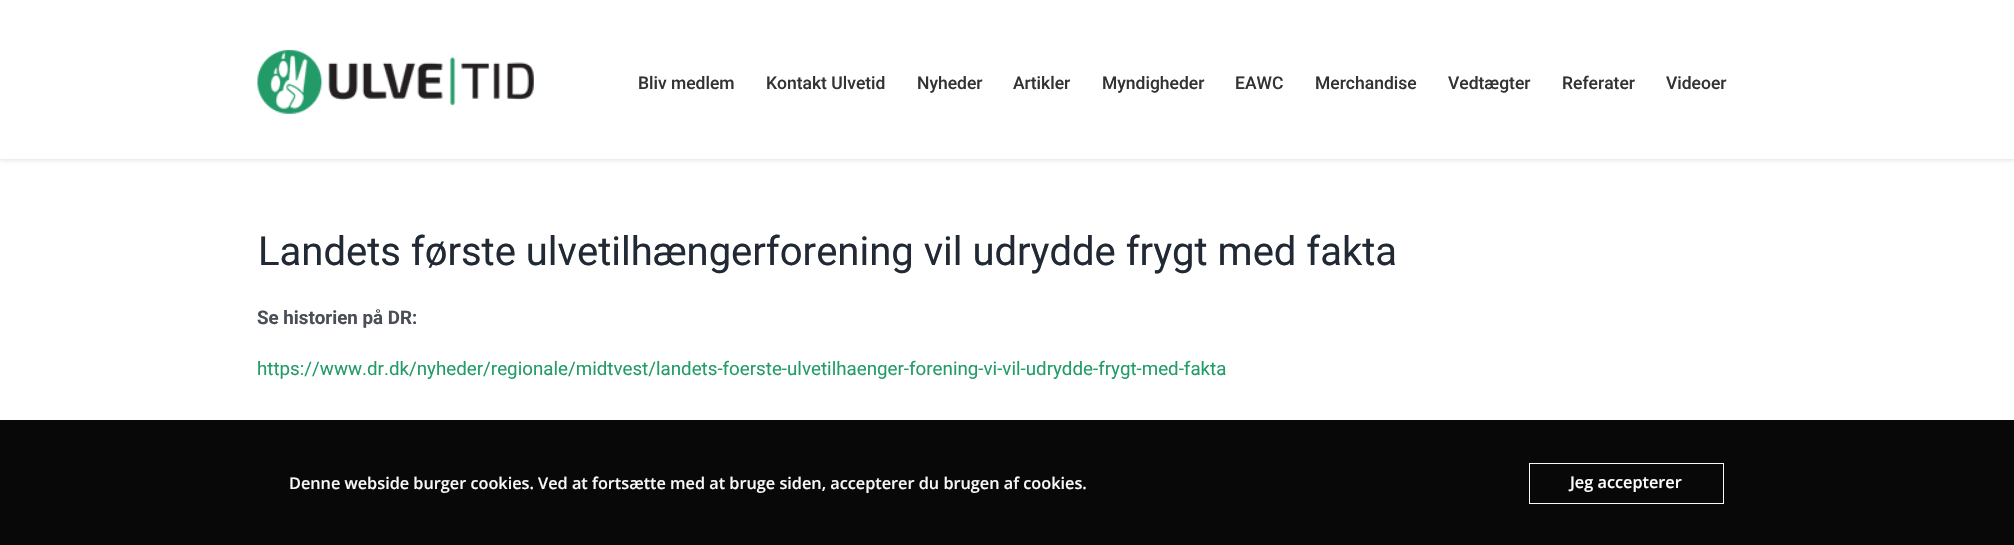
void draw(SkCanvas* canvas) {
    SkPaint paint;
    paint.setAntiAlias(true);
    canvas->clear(0xFFFFFFFF);
    paint.setColor(0xFF080808);
    canvas->drawRect(SkRect::MakeXYWH(0, 420, 2014, 125), paint);
    paint.setColor(0x1F000000);
    paint.setMaskFilter(SkMaskFilter::MakeBlur(kNormal_SkBlurStyle, 2));
    canvas->drawRect(SkRect::MakeXYWH(0, 1, 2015, 159), paint);
    paint.setMaskFilter(nullptr);
    paint.setColor(0xFFFFFFFF);
    canvas->drawRect(SkRect::MakeXYWH(0, 0, 2014, 159), paint);
    canvas->drawImageRect(SkImages::DeferredFromEncodedData(SkData::MakeFromFileName("img1.png")), SkRect::MakeXYWH(257, 49, 277, 65), SkSamplingOptions());
    SkFont font1(fontMgr->matchFamilyStyle("Roboto", SkFontStyle(500, SkFontStyle::kNormal_Width, SkFontStyle::kUpright_Slant)), 17.5f);
    font1.setSubpixel(true);
    paint.setColor(0xFF333333);
    canvas->drawString("Bliv medlem", 638, 89, font1, paint);
    canvas->drawString("Kontakt Ulvetid", 766, 89, font1, paint);
    canvas->drawString("Nyheder", 917, 89, font1, paint);
    canvas->drawString("Artikler", 1013, 89, font1, paint);
    canvas->drawString("Myndigheder", 1102, 89, font1, paint);
    canvas->drawString("EAWC", 1235, 89, font1, paint);
    canvas->drawString("Merchandise", 1315, 89, font1, paint);
    canvas->drawString("Vedtægter", 1448, 89, font1, paint);
    canvas->drawString("Referater", 1562, 89, font1, paint);
    canvas->drawString("Videoer", 1666, 89, font1, paint);
    SkFont font2(fontMgr->matchFamilyStyle("Roboto", SkFontStyle::Normal()), 40);
    font2.setSubpixel(true);
    paint.setColor(0xFF212934);
    canvas->drawString("Landets første ulvetilhængerforening vil udrydde frygt med fakta", 258, 265, font2, paint);
    SkFont font3(fontMgr->matchFamilyStyle("Roboto", SkFontStyle::Bold()), 18.75f);
    font3.setSubpixel(true);
    paint.setColor(0xFF4A4E57);
    canvas->drawString("Se historien på DR:", 257, 324, font3, paint);
    SkFont font4(fontMgr->matchFamilyStyle("Roboto", SkFontStyle::Normal()), 18.75f);
    font4.setSubpixel(true);
    paint.setColor(0xFF239C69);
    canvas->drawString("https://www.dr.dk/nyheder/regionale/midtvest/landets-foerste-ulvetilhaenger-forening-vi-vil-udrydde-frygt-med-fakta", 257, 375, font4, paint);
    SkFont font5(fontMgr->matchFamilyStyle("Open Sans", SkFontStyle(600, SkFontStyle::kNormal_Width, SkFontStyle::kUpright_Slant)), 16.25f);
    font5.setSubpixel(true);
    paint.setColor(0xFFF8F8F8);
    canvas->drawString("Denne webside burger cookies. Ved at fortsætte med at bruge siden, accepterer du brugen af cookies.", 289, 489, font5, paint);
    paint.setStyle(SkPaint::kStroke_Style);
    paint.setStrokeWidth(1);
    canvas->drawRect(SkRect::MakeXYWH(1529.5f, 463.5f, 194, 40), paint);
    paint.setStyle(SkPaint::kFill_Style);
    paint.setColor(0xFFFFFFFF);
    canvas->drawString("Jeg accepterer", 1570, 488, font5, paint);
}
